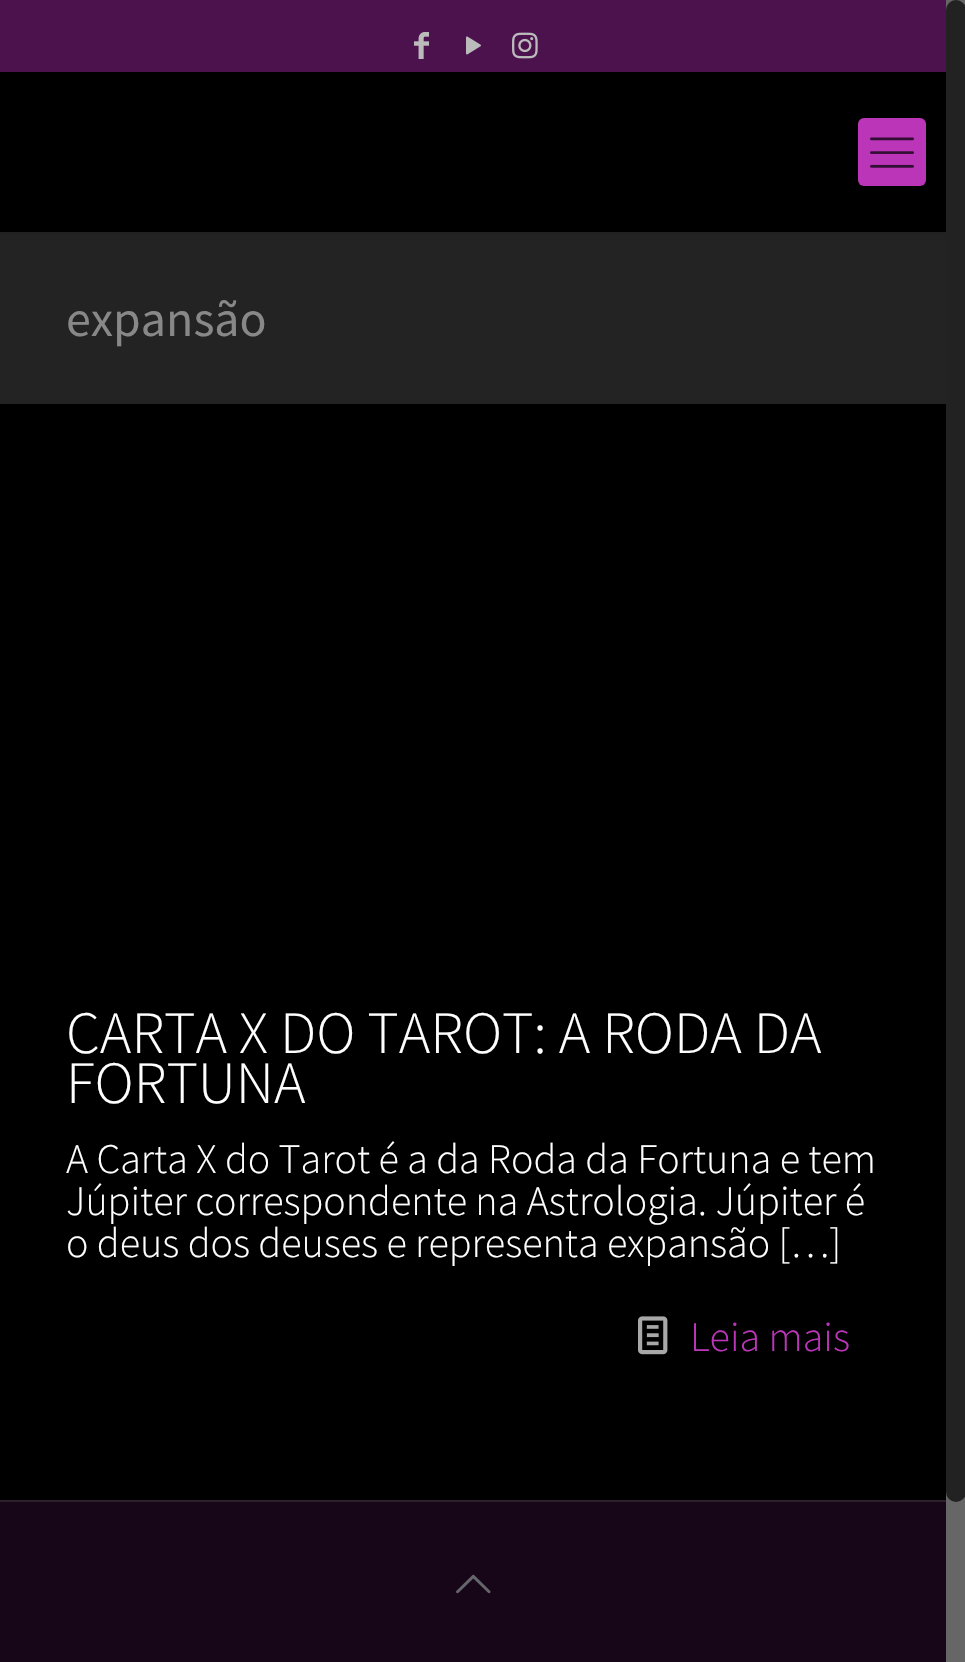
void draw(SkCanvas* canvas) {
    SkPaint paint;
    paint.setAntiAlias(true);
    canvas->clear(0xFF000000);
    paint.setColor(0xFF4B124E);
    canvas->drawRect(SkRect::MakeXYWH(0, 0, 946, 72), paint);
    canvas->drawImageRect(SkImages::DeferredFromEncodedData(SkData::MakeFromFileName("img1.png")), SkRect::MakeXYWH(414, 32, 15, 27), SkSamplingOptions());
    canvas->drawImageRect(SkImages::DeferredFromEncodedData(SkData::MakeFromFileName("img2.png")), SkRect::MakeXYWH(466, 36, 15, 19), SkSamplingOptions());
    canvas->drawImageRect(SkImages::DeferredFromEncodedData(SkData::MakeFromFileName("img3.png")), SkRect::MakeXYWH(512, 32, 26, 27), SkSamplingOptions());
    paint.setColor(0xFF212121);
    canvas->drawRect(SkRect::MakeXYWH(0, 232, 946, 2), paint);
    paint.setColor(0xFFBB35B9);
    canvas->drawRoundRect(SkRect::MakeXYWH(858, 118, 68, 68), 6, 6, paint);
    canvas->drawImageRect(SkImages::DeferredFromEncodedData(SkData::MakeFromFileName("img4.png")), SkRect::MakeXYWH(870, 137, 44, 31), SkSamplingOptions());
    paint.setColor(0xFF232323);
    canvas->drawRect(SkRect::MakeXYWH(0, 234, 946, 170), paint);
    SkFont font1(fontMgr->matchFamilyStyle("Source Sans Pro", SkFontStyle::Normal()), 50);
    font1.setSubpixel(true);
    paint.setColor(0xFF888888);
    canvas->drawString("expansão", 66, 336, font1, paint);
    SkFont font2(fontMgr->matchFamilyStyle("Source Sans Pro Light", SkFontStyle(300, SkFontStyle::kNormal_Width, SkFontStyle::kUpright_Slant)), 60);
    font2.setSubpixel(true);
    paint.setColor(0xFFFFFFFF);
    canvas->drawString("CARTA X DO TAROT: A RODA DA", 66, 1053, font2, paint);
    canvas->drawString("FORTUNA", 66, 1103, font2, paint);
    SkFont font3(fontMgr->matchFamilyStyle("Source Sans Pro Light", SkFontStyle(300, SkFontStyle::kNormal_Width, SkFontStyle::kUpright_Slant)), 42);
    font3.setSubpixel(true);
    canvas->drawString("A Carta X do Tarot é a da Roda da Fortuna e tem", 66, 1173, font3, paint);
    canvas->drawString("Júpiter correspondente na Astrologia. Júpiter é", 66, 1215, font3, paint);
    canvas->drawString("o deus dos deuses e representa expansão […]", 66, 1257, font3, paint);
    canvas->drawImageRect(SkImages::DeferredFromEncodedData(SkData::MakeFromFileName("img5.png")), SkRect::MakeXYWH(638, 1316, 30, 39), SkSamplingOptions());
    paint.setColor(0xFFBB35B9);
    canvas->drawString("Leia mais", 690, 1351, font3, paint);
    paint.setColor(0xFF170618);
    canvas->drawRect(SkRect::MakeXYWH(0, 1502, 946, 160), paint);
    paint.setColor(0xFF2E1F2F);
    canvas->drawRect(SkRect::MakeXYWH(0, 1500, 946, 2), paint);
    canvas->drawImageRect(SkImages::DeferredFromEncodedData(SkData::MakeFromFileName("img6.png")), SkRect::MakeXYWH(456, 1574, 35, 20), SkSamplingOptions());
    paint.setColor(0xFF666666);
    canvas->drawRect(SkRect::MakeXYWH(946, 0, 19, 1662), paint);
    paint.setColor(0xFF222222);
    canvas->drawRoundRect(SkRect::MakeXYWH(946, 0, 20, 1502), 10, 10, paint);
}
